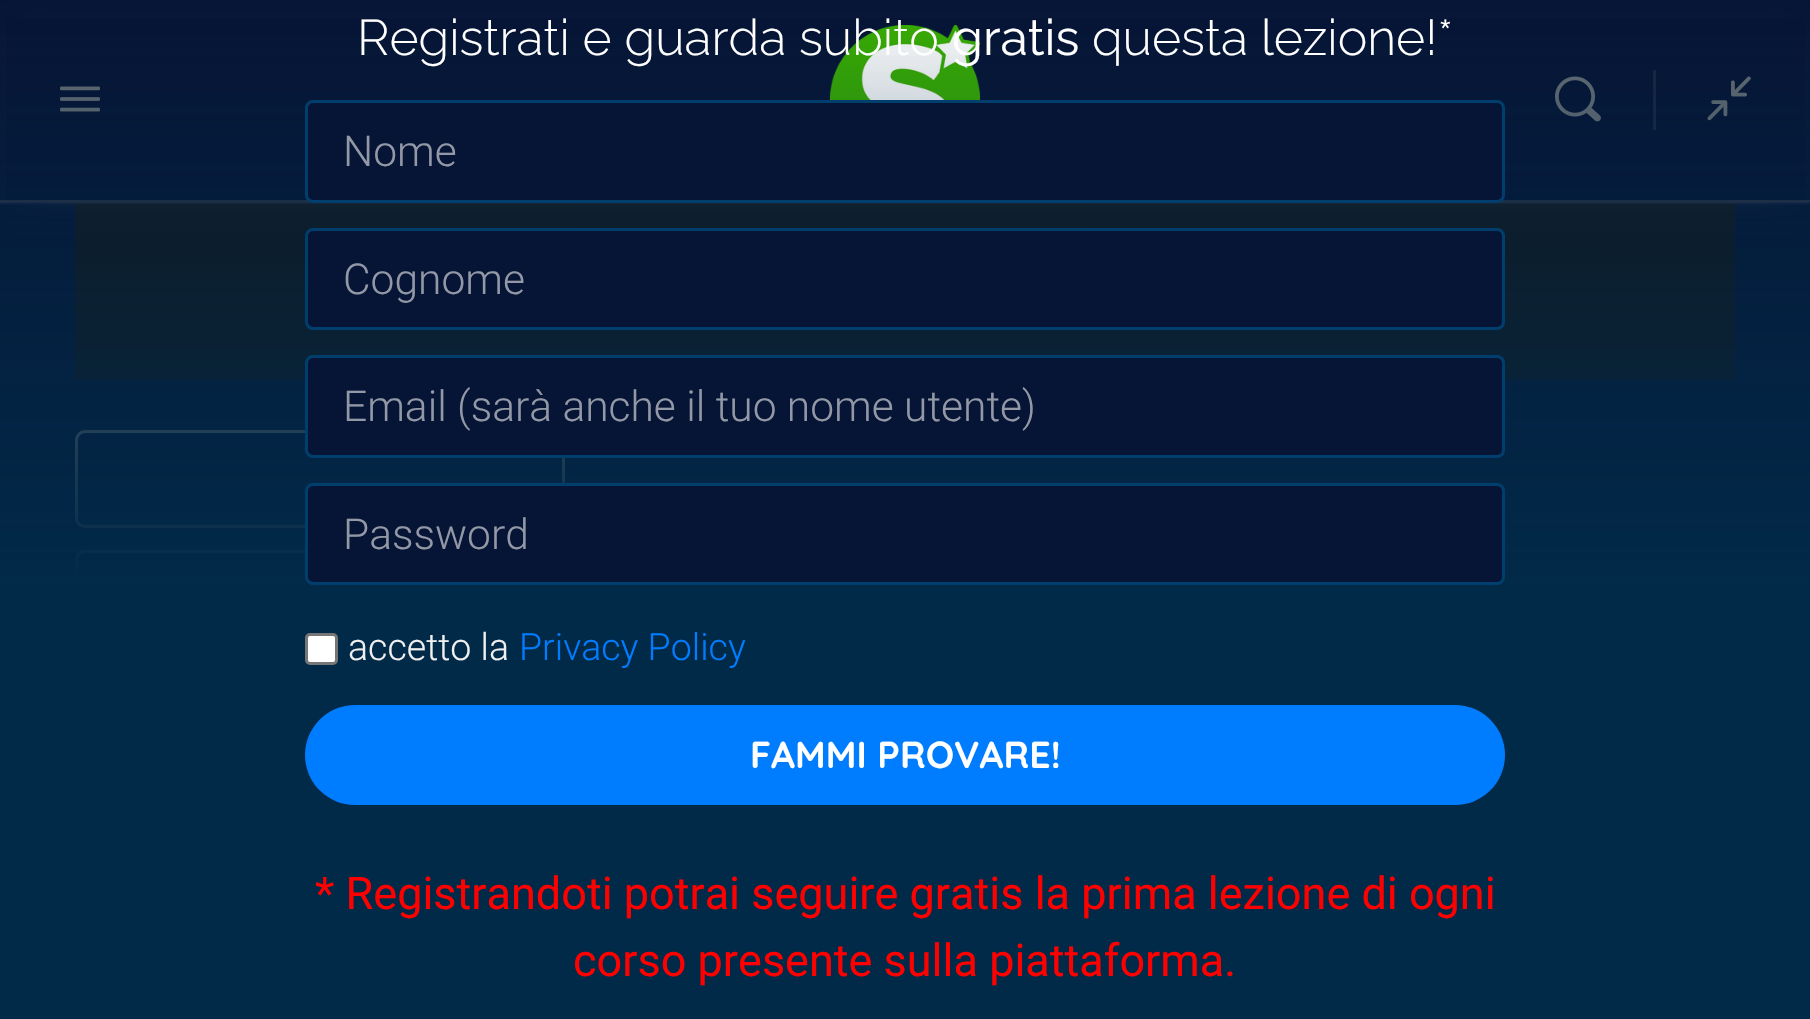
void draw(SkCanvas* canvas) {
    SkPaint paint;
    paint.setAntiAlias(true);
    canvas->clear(0xFF061435);
    canvas->drawImageRect(SkImages::DeferredFromEncodedData(SkData::MakeFromFileName("img5.png")), SkRect::MakeXYWH(75, 203, 1660, 177), SkSamplingOptions());
    paint.setColor(0x4041476C);
    paint.setMaskFilter(SkMaskFilter::MakeBlur(kNormal_SkBlurStyle, 12.5f));
    canvas->drawRect(SkRect::MakeXYWH(18, 30, 1775, 168), paint);
    paint.setMaskFilter(nullptr);
    paint.setColor(0x0D8B8D9D);
    canvas->drawRect(SkRect::MakeXYWH(0, 203, 1810, 2), paint);
    paint.setColor(0xFF061435);
    canvas->drawRect(SkRect::MakeXYWH(6, 18, 1799, 182), paint);
    paint.setColor(0xFF2B3245);
    canvas->drawRect(SkRect::MakeXYWH(0, 200, 1810, 3), paint);
    canvas->drawImageRect(SkImages::DeferredFromEncodedData(SkData::MakeFromFileName("img1.png")), SkRect::MakeXYWH(60, 86, 40, 26), SkSamplingOptions());
    canvas->drawImageRect(SkImages::DeferredFromEncodedData(SkData::MakeFromFileName("img2.png")), SkRect::MakeXYWH(830, 25, 150, 75), SkSamplingOptions());
    canvas->drawImageRect(SkImages::DeferredFromEncodedData(SkData::MakeFromFileName("img3.png")), SkRect::MakeXYWH(1555, 76, 46, 46), SkSamplingOptions());
    paint.setColor(0xFF192642);
    canvas->drawRect(SkRect::MakeXYWH(1653, 70, 3, 60), paint);
    canvas->drawImageRect(SkImages::DeferredFromEncodedData(SkData::MakeFromFileName("img4.png")), SkRect::MakeXYWH(1707, 76, 44, 45), SkSamplingOptions());
    paint.setStyle(SkPaint::kStroke_Style);
    paint.setStrokeWidth(3);
    paint.setColor(0xFF808080);
    canvas->drawRoundRect(SkRect::MakeXYWH(76.5f, 431.5f, 487, 95), 8.5f, 8.5f, paint);
    canvas->drawRoundRect(SkRect::MakeXYWH(76.5f, 551.5f, 487, 95), 8.5f, 8.5f, paint);
    paint.setStyle(SkPaint::kFill_Style);
    {
        const SkColor colors[] = {0x00012948, 0xFF012948};
        const float stops[] = {0, 0.5f};
        const SkPoint ends[] = {{905, 0}, {905, 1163}};
        paint.setShader(SkGradientShader::MakeLinear(ends, colors, stops, 2, SkTileMode::kClamp));
        paint.setAlpha(255);
    }
    canvas->drawRect(SkRect::MakeXYWH(0, 25, 1810, 994), paint);
    SkFont font1(fontMgr->matchFamilyStyle("Raleway", SkFontStyle(300, SkFontStyle::kNormal_Width, SkFontStyle::kUpright_Slant)), 50);
    font1.setSubpixel(true);
    paint.setShader(nullptr);
    paint.setColor(0xFFFFFFFF);
    canvas->drawString("Registrati e guarda subito", 357, 55, font1, paint);
    SkFont font2(fontMgr->matchFamilyStyle("Raleway", SkFontStyle::Normal()), 50);
    font2.setSubpixel(true);
    canvas->drawString("gratis", 952, 55, font2, paint);
    canvas->drawString("questa lezione!*", 1092, 55, font1, paint);
    paint.setColor(0xFF061435);
    canvas->drawRoundRect(SkRect::MakeXYWH(306.5f, 101.5f, 1197, 100), 6.5f, 6.5f, paint);
    paint.setStyle(SkPaint::kStroke_Style);
    paint.setColor(0xFF003E6D);
    canvas->drawRoundRect(SkRect::MakeXYWH(306.5f, 101.5f, 1197, 100), 6.5f, 6.5f, paint);
    SkFont font3(fontMgr->matchFamilyStyle("Roboto", SkFontStyle(300, SkFontStyle::kNormal_Width, SkFontStyle::kUpright_Slant)), 42.5f);
    font3.setSubpixel(true);
    paint.setStyle(SkPaint::kFill_Style);
    paint.setColor(0xFF9298A5);
    canvas->drawString("Nome", 343, 166, font3, paint);
    paint.setColor(0xFF061435);
    canvas->drawRoundRect(SkRect::MakeXYWH(306.5f, 229.5f, 1197, 99), 6.5f, 6.5f, paint);
    paint.setStyle(SkPaint::kStroke_Style);
    paint.setColor(0xFF003E6D);
    canvas->drawRoundRect(SkRect::MakeXYWH(306.5f, 229.5f, 1197, 99), 6.5f, 6.5f, paint);
    paint.setStyle(SkPaint::kFill_Style);
    paint.setColor(0xFF9298A5);
    canvas->drawString("Cognome", 343, 294, font3, paint);
    paint.setColor(0xFF061435);
    canvas->drawRoundRect(SkRect::MakeXYWH(306.5f, 356.5f, 1197, 100), 6.5f, 6.5f, paint);
    paint.setStyle(SkPaint::kStroke_Style);
    paint.setColor(0xFF003E6D);
    canvas->drawRoundRect(SkRect::MakeXYWH(306.5f, 356.5f, 1197, 100), 6.5f, 6.5f, paint);
    paint.setStyle(SkPaint::kFill_Style);
    paint.setColor(0xFF9298A5);
    canvas->drawString("Email (sarà anche il tuo nome utente)", 343, 421, font3, paint);
    paint.setColor(0xFF061435);
    canvas->drawRoundRect(SkRect::MakeXYWH(306.5f, 484.5f, 1197, 99), 6.5f, 6.5f, paint);
    paint.setStyle(SkPaint::kStroke_Style);
    paint.setColor(0xFF003E6D);
    canvas->drawRoundRect(SkRect::MakeXYWH(306.5f, 484.5f, 1197, 99), 6.5f, 6.5f, paint);
    paint.setStyle(SkPaint::kFill_Style);
    paint.setColor(0xFF9298A5);
    canvas->drawString("Password", 343, 549, font3, paint);
    paint.setColor(0xFFFFFFFF);
    canvas->drawRoundRect(SkRect::MakeXYWH(306.5f, 634.5f, 30, 29), 3.5f, 3.5f, paint);
    paint.setStyle(SkPaint::kStroke_Style);
    paint.setColor(0xFF767676);
    canvas->drawRoundRect(SkRect::MakeXYWH(306.5f, 634.5f, 30, 29), 3.5f, 3.5f, paint);
    SkFont font4(fontMgr->matchFamilyStyle("Roboto", SkFontStyle(300, SkFontStyle::kNormal_Width, SkFontStyle::kUpright_Slant)), 37.5f);
    font4.setSubpixel(true);
    paint.setStyle(SkPaint::kFill_Style);
    paint.setColor(0xFFF0F0F0);
    canvas->drawString("accetto la", 348, 660, font4, paint);
    paint.setColor(0xFF007CFF);
    canvas->drawString("Privacy Policy", 519, 660, font4, paint);
    canvas->drawRoundRect(SkRect::MakeXYWH(305, 705, 1200, 100), 50, 50, paint);
    SkFont font5(fontMgr->matchFamilyStyle("Quicksand", SkFontStyle::Bold()), 37.5f);
    font5.setSubpixel(true);
    paint.setColor(0xFFFFFFFF);
    canvas->drawString("FAMMI PROVARE!", 750, 768, font5, paint);
    SkFont font6(fontMgr->matchFamilyStyle("Roboto", SkFontStyle::Normal()), 45);
    font6.setSubpixel(true);
    paint.setColor(0xFFFF0000);
    canvas->drawString("* Registrandoti potrai seguire gratis la prima lezione di ogni", 315, 909, font6, paint);
    canvas->drawString("corso presente sulla piattaforma.", 573, 976, font6, paint);
}
